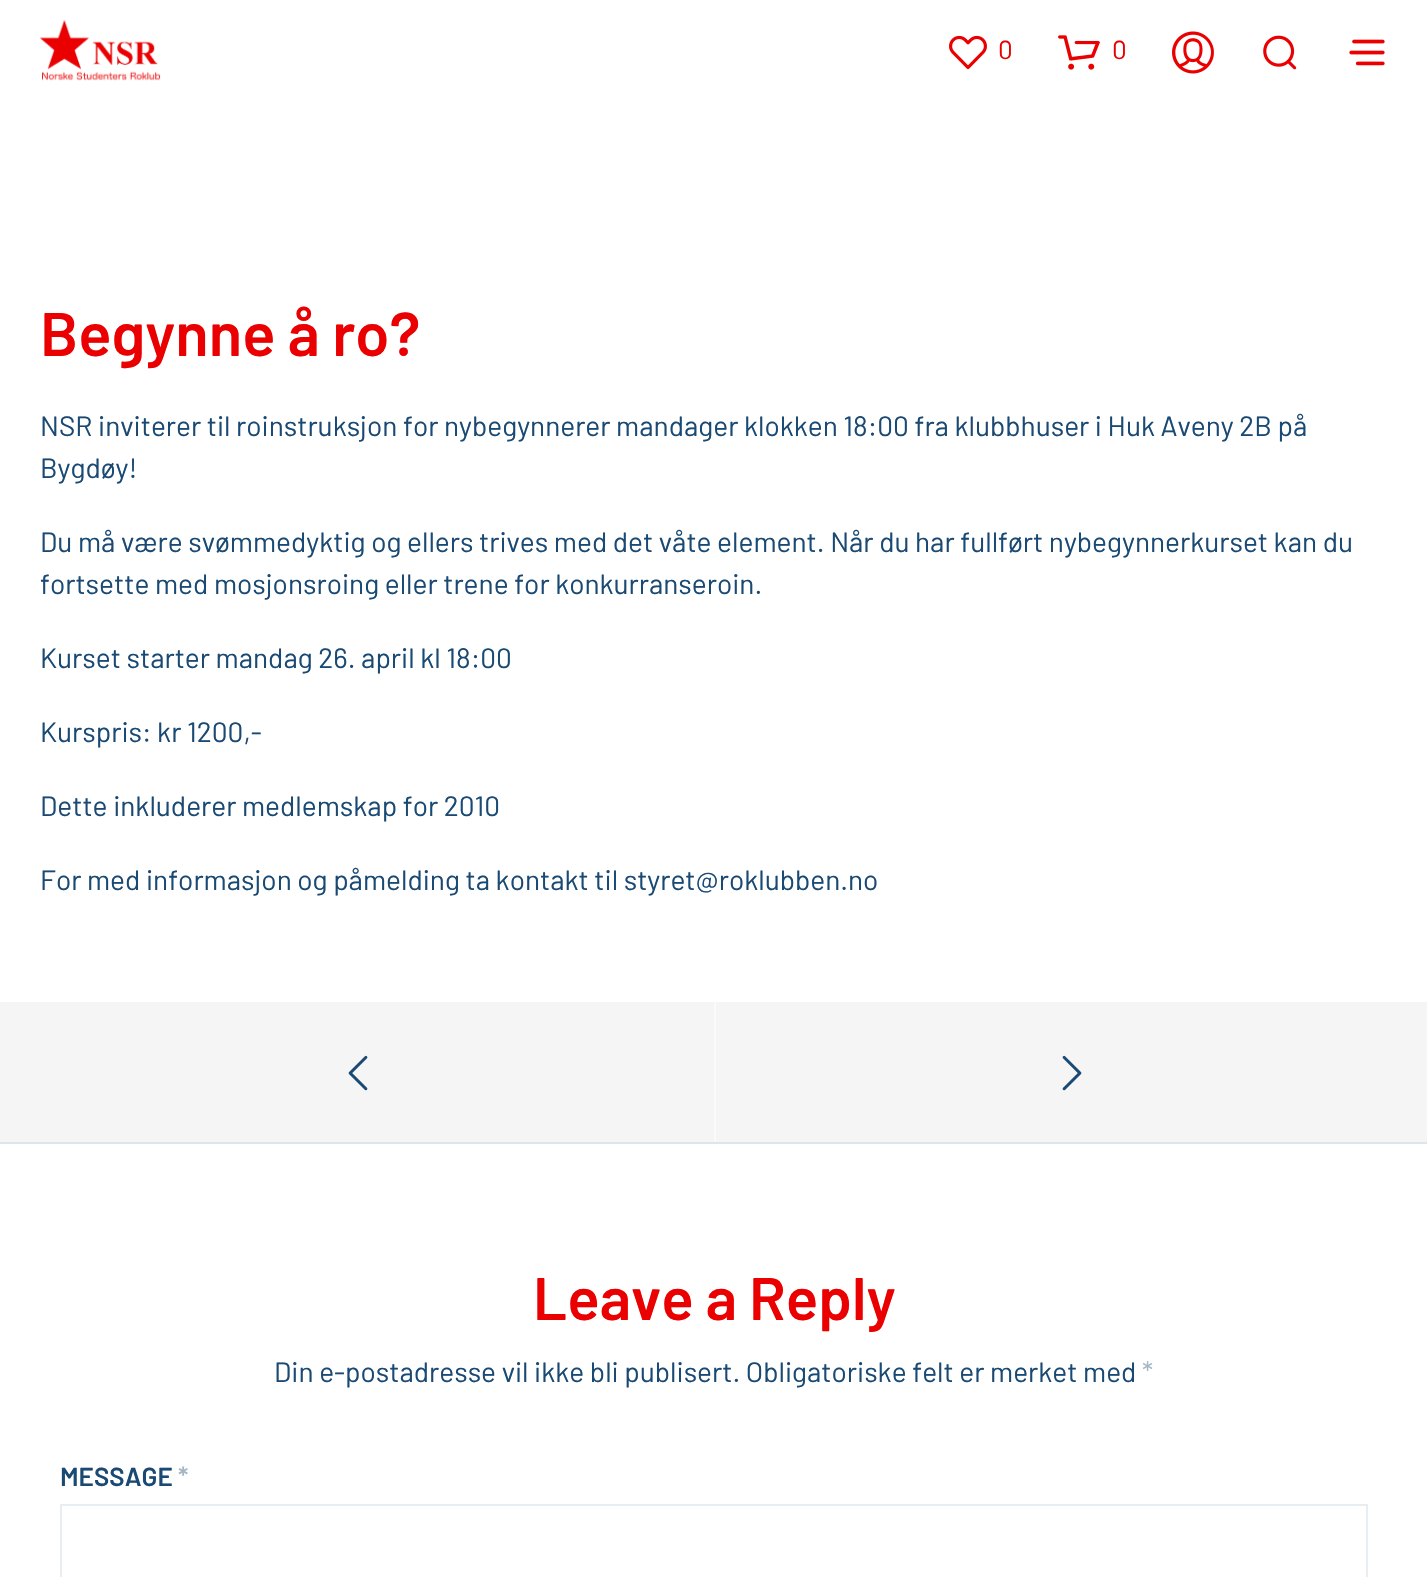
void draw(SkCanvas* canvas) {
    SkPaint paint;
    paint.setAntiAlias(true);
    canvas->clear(0xFFFFFFFF);
    canvas->drawImageRect(SkImages::DeferredFromEncodedData(SkData::MakeFromFileName("img1.png")), SkRect::MakeXYWH(40, 20, 121, 61), SkSamplingOptions());
    canvas->drawImageRect(SkImages::DeferredFromEncodedData(SkData::MakeFromFileName("img2.png")), SkRect::MakeXYWH(949, 35, 38, 35), SkSamplingOptions());
    SkFont font1(fontMgr->matchFamilyStyle("Barlow", SkFontStyle::Normal()), 26);
    font1.setSubpixel(true);
    paint.setColor(0xFFEA0000);
    canvas->drawString("0", 998, 59, font1, paint);
    canvas->drawImageRect(SkImages::DeferredFromEncodedData(SkData::MakeFromFileName("img3.png")), SkRect::MakeXYWH(1058, 35, 42, 35), SkSamplingOptions());
    canvas->drawString("0", 1112, 59, font1, paint);
    canvas->drawImageRect(SkImages::DeferredFromEncodedData(SkData::MakeFromFileName("img4.png")), SkRect::MakeXYWH(1172, 31, 42, 43), SkSamplingOptions());
    canvas->drawImageRect(SkImages::DeferredFromEncodedData(SkData::MakeFromFileName("img5.png")), SkRect::MakeXYWH(1263, 35, 34, 35), SkSamplingOptions());
    canvas->drawImageRect(SkImages::DeferredFromEncodedData(SkData::MakeFromFileName("img6.png")), SkRect::MakeXYWH(1349, 39, 36, 27), SkSamplingOptions());
    SkFont font2(fontMgr->matchFamilyStyle("Barlow", SkFontStyle(600, SkFontStyle::kNormal_Width, SkFontStyle::kUpright_Slant)), 61.5f);
    font2.setSubpixel(true);
    canvas->drawString("Begynne å ro?", 40, 356, font2, paint);
    SkFont font3(fontMgr->matchFamilyStyle("Barlow", SkFontStyle::Normal()), 28);
    font3.setSubpixel(true);
    paint.setColor(0xFF1A4A74);
    canvas->drawString("NSR inviterer til roinstruksjon for nybegynnerer mandager klokken 18:00 fra klubbhuser i Huk Aveny 2B på", 40, 436, font3, paint);
    canvas->drawString("Bygdøy!", 40, 478, font3, paint);
    canvas->drawString("Du må være svømmedyktig og ellers trives med det våte element. Når du har fullført nybegynnerkurset kan du", 40, 552, font3, paint);
    canvas->drawString("fortsette med mosjonsroing eller trene for konkurranseroin.", 40, 594, font3, paint);
    canvas->drawString("Kurset starter mandag 26. april kl 18:00", 40, 668, font3, paint);
    canvas->drawString("Kurspris: kr 1200,-", 40, 742, font3, paint);
    canvas->drawString("Dette inkluderer medlemskap for 2010", 40, 816, font3, paint);
    canvas->drawString("For med informasjon og påmelding ta kontakt til styret@roklubben.no", 40, 890, font3, paint);
    paint.setColor(0xFFFAFAFA);
    canvas->drawRect(SkRect::MakeXYWH(714, 1002, 2, 140), paint);
    paint.setColor(0xFFF5F5F5);
    canvas->drawRect(SkRect::MakeXYWH(0, 1002, 714, 140), paint);
    canvas->drawImageRect(SkImages::DeferredFromEncodedData(SkData::MakeFromFileName("img7.png")), SkRect::MakeXYWH(348, 1055, 20, 36), SkSamplingOptions());
    canvas->drawRect(SkRect::MakeXYWH(716, 1002, 711, 140), paint);
    canvas->drawImageRect(SkImages::DeferredFromEncodedData(SkData::MakeFromFileName("img8.png")), SkRect::MakeXYWH(1062, 1055, 20, 36), SkSamplingOptions());
    paint.setColor(0xFFDDE4EA);
    canvas->drawRect(SkRect::MakeXYWH(0, 1142, 1427, 2), paint);
    SkFont font4(fontMgr->matchFamilyStyle("Barlow", SkFontStyle(600, SkFontStyle::kNormal_Width, SkFontStyle::kUpright_Slant)), 60);
    font4.setSubpixel(true);
    paint.setColor(0xFFEA0000);
    canvas->drawString("Leave a Reply", 533, 1320, font4, paint);
    paint.setColor(0xFF1A4A74);
    canvas->drawString("Din e-postadresse vil ikke bli publisert. Obligatoriske felt er merket med", 274, 1382, font3, paint);
    paint.setColor(0xFFA3B7C7);
    canvas->drawString("*", 1142, 1382, font3, paint);
    SkFont font5(fontMgr->matchFamilyStyle("Barlow", SkFontStyle(600, SkFontStyle::kNormal_Width, SkFontStyle::kUpright_Slant)), 26);
    font5.setSubpixel(true);
    paint.setColor(0xFF1A4A74);
    canvas->drawString("MESSAGE", 60, 1486, font5, paint);
    paint.setColor(0xFFA3B7C7);
    canvas->drawString("*", 178, 1486, font5, paint);
    paint.setStyle(SkPaint::kStroke_Style);
    paint.setStrokeWidth(2);
    paint.setColor(0xFFE8EDF1);
    canvas->drawRect(SkRect::MakeXYWH(61, 1505, 1306, 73), paint);
}
